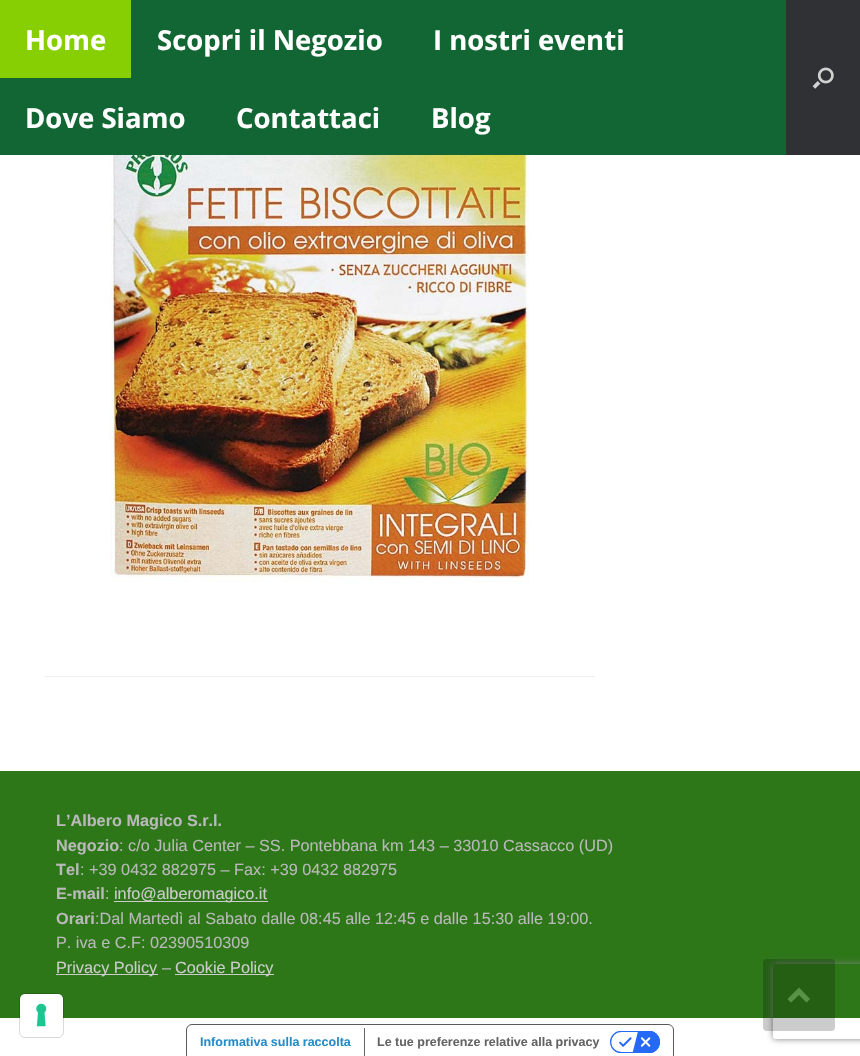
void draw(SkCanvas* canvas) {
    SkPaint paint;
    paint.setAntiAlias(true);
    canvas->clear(0xFFFFFFFF);
    paint.setColor(0xFF116633);
    canvas->drawRect(SkRect::MakeXYWH(0, 0, 786, 155), paint);
    paint.setColor(0xFF87CE02);
    canvas->drawRect(SkRect::MakeXYWH(0, 0, 131, 78), paint);
    SkFont font1(fontMgr->matchFamilyStyle("Open Sans", SkFontStyle::Bold()), 27.5f);
    font1.setSubpixel(true);
    paint.setColor(0xFFFFFFFF);
    canvas->drawString("Home", 25, 50, font1, paint);
    canvas->drawString("Scopri il Negozio", 157, 50, font1, paint);
    canvas->drawString("I nostri eventi", 433, 50, font1, paint);
    canvas->drawString("Dove Siamo", 25, 128, font1, paint);
    canvas->drawString("Contattaci", 236, 128, font1, paint);
    canvas->drawString("Blog", 431, 128, font1, paint);
    paint.setColor(0xFF303134);
    canvas->drawRect(SkRect::MakeXYWH(786, 0, 74, 155), paint);
    canvas->drawImageRect(SkImages::DeferredFromEncodedData(SkData::MakeFromFileName("img1.png")), SkRect::MakeXYWH(812, 67, 22, 22), SkSamplingOptions());
    paint.setColor(0xFFEEEEEE);
    canvas->drawRect(SkRect::MakeXYWH(44, 676, 551, 1), paint);
    canvas->drawImageRect(SkImages::DeferredFromEncodedData(SkData::MakeFromFileName("img2.png")), SkRect::MakeXYWH(110, 155, 419, 428), SkSamplingOptions());
    paint.setColor(0xFF2D7719);
    canvas->drawRect(SkRect::MakeXYWH(0, 771, 860, 247), paint);
    SkFont font2(fontMgr->matchFamilyStyle("Liberation Sans", SkFontStyle::Bold()), 16.25f);
    font2.setSubpixel(true);
    paint.setColor(0xFFB9B9B9);
    canvas->drawString("L’Albero Magico S.r.l.", 56, 826, font2, paint);
    canvas->drawString("Negozio", 56, 851, font2, paint);
    SkFont font3(fontMgr->matchFamilyStyle("Liberation Sans", SkFontStyle::Normal()), 16.25f);
    font3.setSubpixel(true);
    canvas->drawString(": c/o Julia Center – SS. Pontebbana km 143 – 33010 Cassacco (UD)", 119, 851, font3, paint);
    canvas->drawString("Tel", 56, 875, font2, paint);
    canvas->drawString(": +39 0432 882975 – Fax: +39 0432 882975", 80, 875, font3, paint);
    canvas->drawString("E-mail", 56, 899, font2, paint);
    canvas->drawString(":", 105, 899, font3, paint);
    paint.setColor(0xFFCCCCCC);
    canvas->drawRect(SkRect::MakeXYWH(114, 901, 154, 1), paint);
    canvas->drawString("info@alberomagico.it", 114, 899, font3, paint);
    paint.setColor(0xFFB9B9B9);
    canvas->drawString("Orari", 56, 924, font2, paint);
    canvas->drawString(":Dal Martedì al Sabato dalle 08:45 alle 12:45 e dalle 15:30 alle 19:00.", 95, 924, font3, paint);
    canvas->drawString("P. iva e C.F: 02390510309", 56, 948, font3, paint);
    paint.setColor(0xFFCCCCCC);
    canvas->drawRect(SkRect::MakeXYWH(56, 974, 102, 1), paint);
    canvas->drawString("Privacy Policy", 56, 973, font3, paint);
    paint.setColor(0xFFB9B9B9);
    canvas->drawString("–", 162, 973, font3, paint);
    paint.setColor(0xFFCCCCCC);
    canvas->drawRect(SkRect::MakeXYWH(175, 974, 99, 1), paint);
    canvas->drawString("Cookie Policy", 175, 973, font3, paint);
    canvas->save();
    canvas->clipPath(SkPathBuilder(SkPathFillType::kEvenOdd).moveTo(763, 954).lineTo(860, 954).lineTo(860, 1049).lineTo(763, 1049).close().moveTo(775.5f, 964).lineTo(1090.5f, 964).cubicTo(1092, 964, 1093, 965, 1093, 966.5f).lineTo(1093, 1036.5f).cubicTo(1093, 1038, 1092, 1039, 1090.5f, 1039).lineTo(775.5f, 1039).cubicTo(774, 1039, 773, 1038, 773, 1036.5f).lineTo(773, 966.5f).cubicTo(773, 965, 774, 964, 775.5f, 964).close().detach(), true);
    paint.setColor(0xFF808080);
    paint.setMaskFilter(SkMaskFilter::MakeBlur(kNormal_SkBlurStyle, 3));
    canvas->drawRoundRect(SkRect::MakeXYWH(773, 964, 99, 75), 2.5f, 2.5f, paint);
    paint.setMaskFilter(nullptr);
    canvas->restore();
    paint.setStyle(SkPaint::kStroke_Style);
    paint.setStrokeWidth(1);
    paint.setColor(0x26000000);
    canvas->drawRoundRect(SkRect::MakeXYWH(19.5f, 993.5f, 44, 44), 5.5f, 5.5f, paint);
    paint.setStyle(SkPaint::kFill_Style);
    paint.setColor(0xFFFFFFFF);
    canvas->drawRoundRect(SkRect::MakeXYWH(20, 994, 43, 42), 5, 5, paint);
    canvas->drawImageRect(SkImages::DeferredFromEncodedData(SkData::MakeFromFileName("img3.png")), SkRect::MakeXYWH(36, 1003, 11, 24), SkSamplingOptions());
    paint.setColor(0x33000000);
    canvas->drawRoundRect(SkRect::MakeXYWH(763, 959, 72, 72), 4, 4, paint);
    paint.setColor(0xFF579247);
    canvas->drawPath(SkPathBuilder().moveTo(810, 999).lineTo(799, 987.5f).lineTo(787.5f, 999).lineTo(791, 1002.5f).lineTo(799, 995).lineTo(806.5f, 1002.5f).close().detach(), paint);
    paint.setStyle(SkPaint::kStroke_Style);
    paint.setColor(0xFF595959);
    canvas->drawRoundRect(SkRect::MakeXYWH(186.5f, 1024.5f, 487, 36), 5.5f, 5.5f, paint);
    SkFont font4(fontMgr->matchFamilyStyle("Liberation Sans", SkFontStyle::Bold()), 12.5f);
    font4.setSubpixel(true);
    paint.setStyle(SkPaint::kFill_Style);
    paint.setColor(0xFF248CC8);
    canvas->drawString("Informativa sulla raccolta", 200, 1046, font4, paint);
    paint.setColor(0xFF646464);
    canvas->drawRect(SkRect::MakeXYWH(364, 1028, 1, 28), paint);
    canvas->drawString("Le tue preferenze relative alla privacy", 377, 1046, font4, paint);
    canvas->drawImageRect(SkImages::DeferredFromEncodedData(SkData::MakeFromFileName("img4.png")), SkRect::MakeXYWH(610, 1031, 50, 22), SkSamplingOptions());
}
